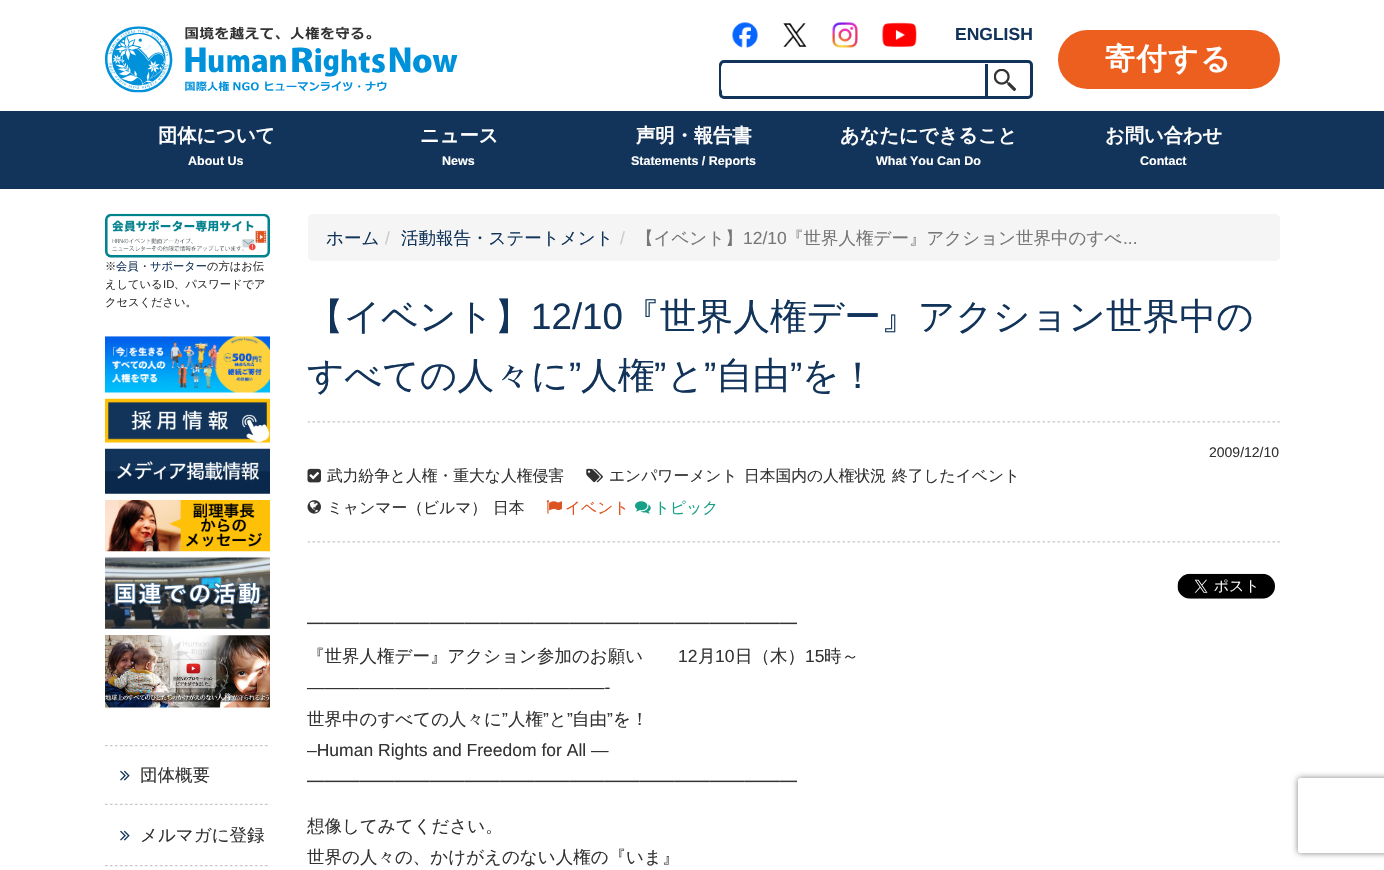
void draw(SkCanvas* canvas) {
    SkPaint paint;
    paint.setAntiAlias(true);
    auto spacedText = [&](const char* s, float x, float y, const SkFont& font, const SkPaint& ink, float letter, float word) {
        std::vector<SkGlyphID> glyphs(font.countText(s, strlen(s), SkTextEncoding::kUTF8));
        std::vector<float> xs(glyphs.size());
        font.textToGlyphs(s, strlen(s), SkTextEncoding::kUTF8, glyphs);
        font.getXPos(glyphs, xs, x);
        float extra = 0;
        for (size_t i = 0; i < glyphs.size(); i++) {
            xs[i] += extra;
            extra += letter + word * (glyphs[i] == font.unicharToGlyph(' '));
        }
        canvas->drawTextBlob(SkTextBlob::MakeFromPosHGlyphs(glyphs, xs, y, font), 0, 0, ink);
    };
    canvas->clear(0xFFFFFFFF);
    canvas->drawImageRect(SkImages::DeferredFromEncodedData(SkData::MakeFromFileName("img1.png")), SkRect::MakeXYWH(105, 26, 353, 67), SkSamplingOptions());
    canvas->drawImageRect(SkImages::DeferredFromEncodedData(SkData::MakeFromFileName("img2.png")), SkRect::MakeXYWH(732, 22, 26, 26), SkSamplingOptions());
    canvas->drawImageRect(SkImages::DeferredFromEncodedData(SkData::MakeFromFileName("img3.png")), SkRect::MakeXYWH(783, 23, 24, 24), SkSamplingOptions());
    canvas->drawImageRect(SkImages::DeferredFromEncodedData(SkData::MakeFromFileName("img4.png")), SkRect::MakeXYWH(832, 22, 26, 26), SkSamplingOptions());
    canvas->drawImageRect(SkImages::DeferredFromEncodedData(SkData::MakeFromFileName("img5.png")), SkRect::MakeXYWH(882, 22, 35, 25), SkSamplingOptions());
    SkFont font1(fontMgr->matchFamilyStyle("Liberation Sans", SkFontStyle::Bold()), 17.5f);
    font1.setSubpixel(true);
    paint.setColor(0xFF12345A);
    canvas->drawString("ENGLISH", 955, 40, font1, paint);
    paint.setStyle(SkPaint::kStroke_Style);
    paint.setStrokeWidth(3);
    canvas->drawRoundRect(SkRect::MakeXYWH(720.5f, 61.5f, 311, 36), 3.5f, 3.5f, paint);
    paint.setStyle(SkPaint::kFill_Style);
    paint.setColor(0xFFFFFFFF);
    canvas->drawPath(SkPathBuilder().moveTo(726, 63).lineTo(978, 63).lineTo(978, 93).lineTo(726, 93).cubicTo(723, 93, 721, 91, 721, 88).lineTo(721, 68).cubicTo(721, 65, 723, 63, 726, 63).close().detach(), paint);
    canvas->drawImageRect(SkImages::DeferredFromEncodedData(SkData::MakeFromFileName("img6.png")), SkRect::MakeXYWH(994, 69, 22, 22), SkSamplingOptions());
    paint.setColor(0xFF12345A);
    canvas->drawRect(SkRect::MakeXYWH(985, 64, 3, 32), paint);
    paint.setColor(0xFFED5F1E);
    canvas->drawRoundRect(SkRect::MakeXYWH(1059.5f, 31.5f, 219, 56), 28, 28, paint);
    paint.setStyle(SkPaint::kStroke_Style);
    canvas->drawRoundRect(SkRect::MakeXYWH(1059.5f, 31.5f, 219, 56), 28, 28, paint);
    SkFont font2(fontMgr->matchFamilyStyle("WenQuanYi Zen Hei", SkFontStyle::Bold()), 30);
    font2.setSubpixel(true);
    paint.setStyle(SkPaint::kFill_Style);
    paint.setColor(0xFFFFFFFF);
    spacedText("寄付する", 1105, 69, font2, paint, 1.5f, 0);
    paint.setColor(0xFF12345A);
    canvas->drawRect(SkRect::MakeXYWH(0, 111, 1384, 78), paint);
    SkFont font3(fontMgr->matchFamilyStyle("WenQuanYi Zen Hei", SkFontStyle::Bold()), 19.25f);
    font3.setSubpixel(true);
    paint.setColor(0xFFFFFFFF);
    canvas->drawString("団体について", 158, 142, font3, paint);
    SkFont font4(fontMgr->matchFamilyStyle("Liberation Sans", SkFontStyle::Bold()), 12.5f);
    font4.setSubpixel(true);
    canvas->drawString("About Us", 188, 165, font4, paint);
    canvas->drawString("ニュース", 420, 142, font3, paint);
    canvas->drawString("News", 442, 165, font4, paint);
    canvas->drawString("声明・報告書", 636, 142, font3, paint);
    canvas->drawString("Statements / Reports", 631, 165, font4, paint);
    canvas->drawString("あなたにできること", 840, 142, font3, paint);
    canvas->drawString("What You Can Do", 876, 165, font4, paint);
    canvas->drawString("お問い合わせ", 1105, 142, font3, paint);
    canvas->drawString("Contact", 1140, 165, font4, paint);
    canvas->drawImageRect(SkImages::DeferredFromEncodedData(SkData::MakeFromFileName("img7.png")), SkRect::MakeXYWH(105, 213, 165, 45), SkSamplingOptions());
    SkFont font5(fontMgr->matchFamilyStyle("WenQuanYi Zen Hei", SkFontStyle(500, SkFontStyle::kNormal_Width, SkFontStyle::kUpright_Slant)), 11.25f);
    font5.setSubpixel(true);
    paint.setColor(0xFF333333);
    canvas->drawString("※", 105, 270, font5, paint);
    paint.setColor(0xFF12345A);
    canvas->drawString("会員", 116, 270, font5, paint);
    paint.setColor(0xFF333333);
    canvas->drawString("・", 139, 270, font5, paint);
    paint.setColor(0xFF12345A);
    canvas->drawString("サポーター", 150, 270, font5, paint);
    paint.setColor(0xFF333333);
    canvas->drawString("の方はお伝", 207, 270, font5, paint);
    canvas->drawString("えしている", 105, 288, font5, paint);
    SkFont font6(fontMgr->matchFamilyStyle("Liberation Sans", SkFontStyle::Normal()), 11.25f);
    font6.setSubpixel(true);
    canvas->drawString("ID", 163, 288, font6, paint);
    canvas->drawString("、パスワードでア", 174, 288, font5, paint);
    canvas->drawString("クセスください。", 105, 306, font5, paint);
    canvas->drawImageRect(SkImages::DeferredFromEncodedData(SkData::MakeFromFileName("img8.png")), SkRect::MakeXYWH(105, 336, 165, 57), SkSamplingOptions());
    canvas->drawImageRect(SkImages::DeferredFromEncodedData(SkData::MakeFromFileName("img9.png")), SkRect::MakeXYWH(105, 398, 165, 45), SkSamplingOptions());
    canvas->drawImageRect(SkImages::DeferredFromEncodedData(SkData::MakeFromFileName("img10.png")), SkRect::MakeXYWH(105, 448, 165, 46), SkSamplingOptions());
    canvas->drawImageRect(SkImages::DeferredFromEncodedData(SkData::MakeFromFileName("img11.png")), SkRect::MakeXYWH(105, 500, 165, 52), SkSamplingOptions());
    canvas->drawImageRect(SkImages::DeferredFromEncodedData(SkData::MakeFromFileName("img12.png")), SkRect::MakeXYWH(105, 557, 165, 72), SkSamplingOptions());
    canvas->drawImageRect(SkImages::DeferredFromEncodedData(SkData::MakeFromFileName("img13.png")), SkRect::MakeXYWH(105, 635, 165, 73), SkSamplingOptions());
    canvas->drawImageRect(SkImages::DeferredFromEncodedData(SkData::MakeFromFileName("img14.png")), SkRect::MakeXYWH(105, 745, 165, 2), SkSamplingOptions());
    canvas->drawImageRect(SkImages::DeferredFromEncodedData(SkData::MakeFromFileName("img15.png")), SkRect::MakeXYWH(105, 803, 165, 2), SkSamplingOptions());
    canvas->drawImageRect(SkImages::DeferredFromEncodedData(SkData::MakeFromFileName("img16.png")), SkRect::MakeXYWH(120, 770, 10, 11), SkSamplingOptions());
    SkFont font7(fontMgr->matchFamilyStyle("WenQuanYi Zen Hei", SkFontStyle(500, SkFontStyle::kNormal_Width, SkFontStyle::kUpright_Slant)), 17.5f);
    font7.setSubpixel(true);
    canvas->drawString("団体概要", 140, 781, font7, paint);
    canvas->drawImageRect(SkImages::DeferredFromEncodedData(SkData::MakeFromFileName("img14.png")), SkRect::MakeXYWH(105, 865, 165, 2), SkSamplingOptions());
    canvas->drawImageRect(SkImages::DeferredFromEncodedData(SkData::MakeFromFileName("img16.png")), SkRect::MakeXYWH(120, 830, 10, 11), SkSamplingOptions());
    canvas->drawString("メルマガに登録", 140, 841, font7, paint);
    paint.setColor(0xFFF5F5F5);
    canvas->drawRoundRect(SkRect::MakeXYWH(308, 214, 972, 47), 5, 5, paint);
    paint.setColor(0xFF12345A);
    canvas->drawString("ホーム", 326, 244, font7, paint);
    SkFont font8(fontMgr->matchFamilyStyle("Liberation Sans", SkFontStyle::Normal()), 17.5f);
    font8.setSubpixel(true);
    paint.setColor(0xFFCCCCCC);
    canvas->drawString("/", 385, 244, font8, paint);
    paint.setColor(0xFF12345A);
    canvas->drawString("活動報告・ステートメント", 401, 244, font7, paint);
    paint.setColor(0xFFCCCCCC);
    canvas->drawString("/", 620, 244, font8, paint);
    paint.setColor(0xFF777777);
    canvas->drawString("【イベント】", 636, 244, font7, paint);
    canvas->drawString("12/10", 743, 244, font8, paint);
    canvas->drawString("『世界人権デー』アクション世界中のすべ", 786, 244, font7, paint);
    canvas->drawString("...", 1123, 244, font8, paint);
    canvas->drawImageRect(SkImages::DeferredFromEncodedData(SkData::MakeFromFileName("img17.png")), SkRect::MakeXYWH(307, 421, 973, 2), SkSamplingOptions());
    SkFont font9(fontMgr->matchFamilyStyle("WenQuanYi Zen Hei", SkFontStyle(500, SkFontStyle::kNormal_Width, SkFontStyle::kUpright_Slant)), 36.75f);
    font9.setSubpixel(true);
    paint.setColor(0xFF12345A);
    canvas->drawString("【イベント】", 307, 329, font9, paint);
    SkFont font10(fontMgr->matchFamilyStyle("Liberation Sans", SkFontStyle::Normal()), 36.75f);
    font10.setSubpixel(true);
    canvas->drawString("12/10", 531, 329, font10, paint);
    canvas->drawString("『世界人権デー』アクション世界中の", 623, 329, font9, paint);
    canvas->drawString("すべての人々に", 307, 388, font9, paint);
    canvas->drawString("”", 569, 388, font10, paint);
    canvas->drawString("人権", 581, 388, font9, paint);
    canvas->drawString("”", 654, 388, font10, paint);
    canvas->drawString("と", 667, 388, font9, paint);
    canvas->drawString("”", 704, 388, font10, paint);
    canvas->drawString("自由", 716, 388, font9, paint);
    canvas->drawString("”", 790, 388, font10, paint);
    canvas->drawString("を！", 802, 388, font9, paint);
    canvas->drawImageRect(SkImages::DeferredFromEncodedData(SkData::MakeFromFileName("img17.png")), SkRect::MakeXYWH(307, 541, 973, 2), SkSamplingOptions());
    SkFont font11(fontMgr->matchFamilyStyle("Liberation Sans", SkFontStyle::Normal()), 14);
    font11.setSubpixel(true);
    paint.setColor(0xFF333333);
    canvas->drawString("2009/12/10", 1209, 457, font11, paint);
    canvas->drawImageRect(SkImages::DeferredFromEncodedData(SkData::MakeFromFileName("img18.png")), SkRect::MakeXYWH(307, 468, 14, 15), SkSamplingOptions());
    SkFont font12(fontMgr->matchFamilyStyle("WenQuanYi Zen Hei", SkFontStyle(500, SkFontStyle::kNormal_Width, SkFontStyle::kUpright_Slant)), 15.75f);
    font12.setSubpixel(true);
    canvas->drawString("武力紛争と人権・重大な人権侵害", 327, 481, font12, paint);
    canvas->drawImageRect(SkImages::DeferredFromEncodedData(SkData::MakeFromFileName("img19.png")), SkRect::MakeXYWH(586, 468, 17, 15), SkSamplingOptions());
    canvas->drawString("エンパワーメント", 609, 481, font12, paint);
    canvas->drawString("日本国内の人権状況", 744, 481, font12, paint);
    canvas->drawString("終了したイベント", 892, 481, font12, paint);
    canvas->drawImageRect(SkImages::DeferredFromEncodedData(SkData::MakeFromFileName("img20.png")), SkRect::MakeXYWH(307, 500, 14, 14), SkSamplingOptions());
    canvas->drawString("ミャンマー（ビルマ）", 327, 513, font12, paint);
    canvas->drawString("日本", 493, 513, font12, paint);
    canvas->drawImageRect(SkImages::DeferredFromEncodedData(SkData::MakeFromFileName("img21.png")), SkRect::MakeXYWH(546, 500, 16, 14), SkSamplingOptions());
    paint.setColor(0xFFDD5423);
    canvas->drawString("イベント", 565, 513, font12, paint);
    canvas->drawImageRect(SkImages::DeferredFromEncodedData(SkData::MakeFromFileName("img22.png")), SkRect::MakeXYWH(635, 501, 16, 13), SkSamplingOptions());
    paint.setColor(0xFF16A085);
    canvas->drawString("トピック", 654, 513, font12, paint);
    canvas->drawImageRect(SkImages::DeferredFromEncodedData(SkData::MakeFromFileName("img23.png")), SkRect::MakeXYWH(1177, 573, 98, 26), SkSamplingOptions());
    paint.setColor(0xFF333333);
    canvas->drawString("━━━━━━━━━━━━━━━━━━━━━━━━━━━━", 307, 630, font7, paint);
    canvas->drawString("『世界人権デー』アクション参加のお願い", 307, 662, font7, paint);
    canvas->drawString("12", 678, 662, font8, paint);
    canvas->drawString("月", 698, 662, font7, paint);
    canvas->drawString("10", 715, 662, font8, paint);
    canvas->drawString("日（木）", 735, 662, font7, paint);
    canvas->drawString("15", 805, 662, font8, paint);
    canvas->drawString("時～", 824, 662, font7, paint);
    canvas->drawString("—————————————————-", 307, 693, font8, paint);
    canvas->drawString("世界中のすべての人々に", 307, 725, font7, paint);
    canvas->drawString("”", 502, 725, font8, paint);
    canvas->drawString("人権", 508, 725, font7, paint);
    canvas->drawString("”", 543, 725, font8, paint);
    canvas->drawString("と", 549, 725, font7, paint);
    canvas->drawString("”", 567, 725, font8, paint);
    canvas->drawString("自由", 572, 725, font7, paint);
    canvas->drawString("”", 607, 725, font8, paint);
    canvas->drawString("を！", 613, 725, font7, paint);
    canvas->drawString("–Human Rights and Freedom for All —", 307, 756, font8, paint);
    canvas->drawString("━━━━━━━━━━━━━━━━━━━━━━━━━━━━", 307, 788, font7, paint);
    canvas->drawString("想像してみてください。", 307, 832, font7, paint);
    canvas->drawString("世界の人々の、かけがえのない人権の『いま』", 307, 863, font7, paint);
    canvas->save();
    canvas->clipPath(SkPathBuilder(SkPathFillType::kEvenOdd).moveTo(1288, 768).lineTo(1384, 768).lineTo(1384, 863).lineTo(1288, 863).close().moveTo(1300.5f, 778).lineTo(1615.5f, 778).cubicTo(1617, 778, 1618, 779, 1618, 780.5f).lineTo(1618, 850.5f).cubicTo(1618, 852, 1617, 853, 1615.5f, 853).lineTo(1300.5f, 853).cubicTo(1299, 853, 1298, 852, 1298, 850.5f).lineTo(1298, 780.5f).cubicTo(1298, 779, 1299, 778, 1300.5f, 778).close().detach(), true);
    paint.setColor(0xFF808080);
    paint.setMaskFilter(SkMaskFilter::MakeBlur(kNormal_SkBlurStyle, 3));
    canvas->drawRoundRect(SkRect::MakeXYWH(1298, 778, 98, 75), 2.5f, 2.5f, paint);
    paint.setMaskFilter(nullptr);
    canvas->restore();
}
